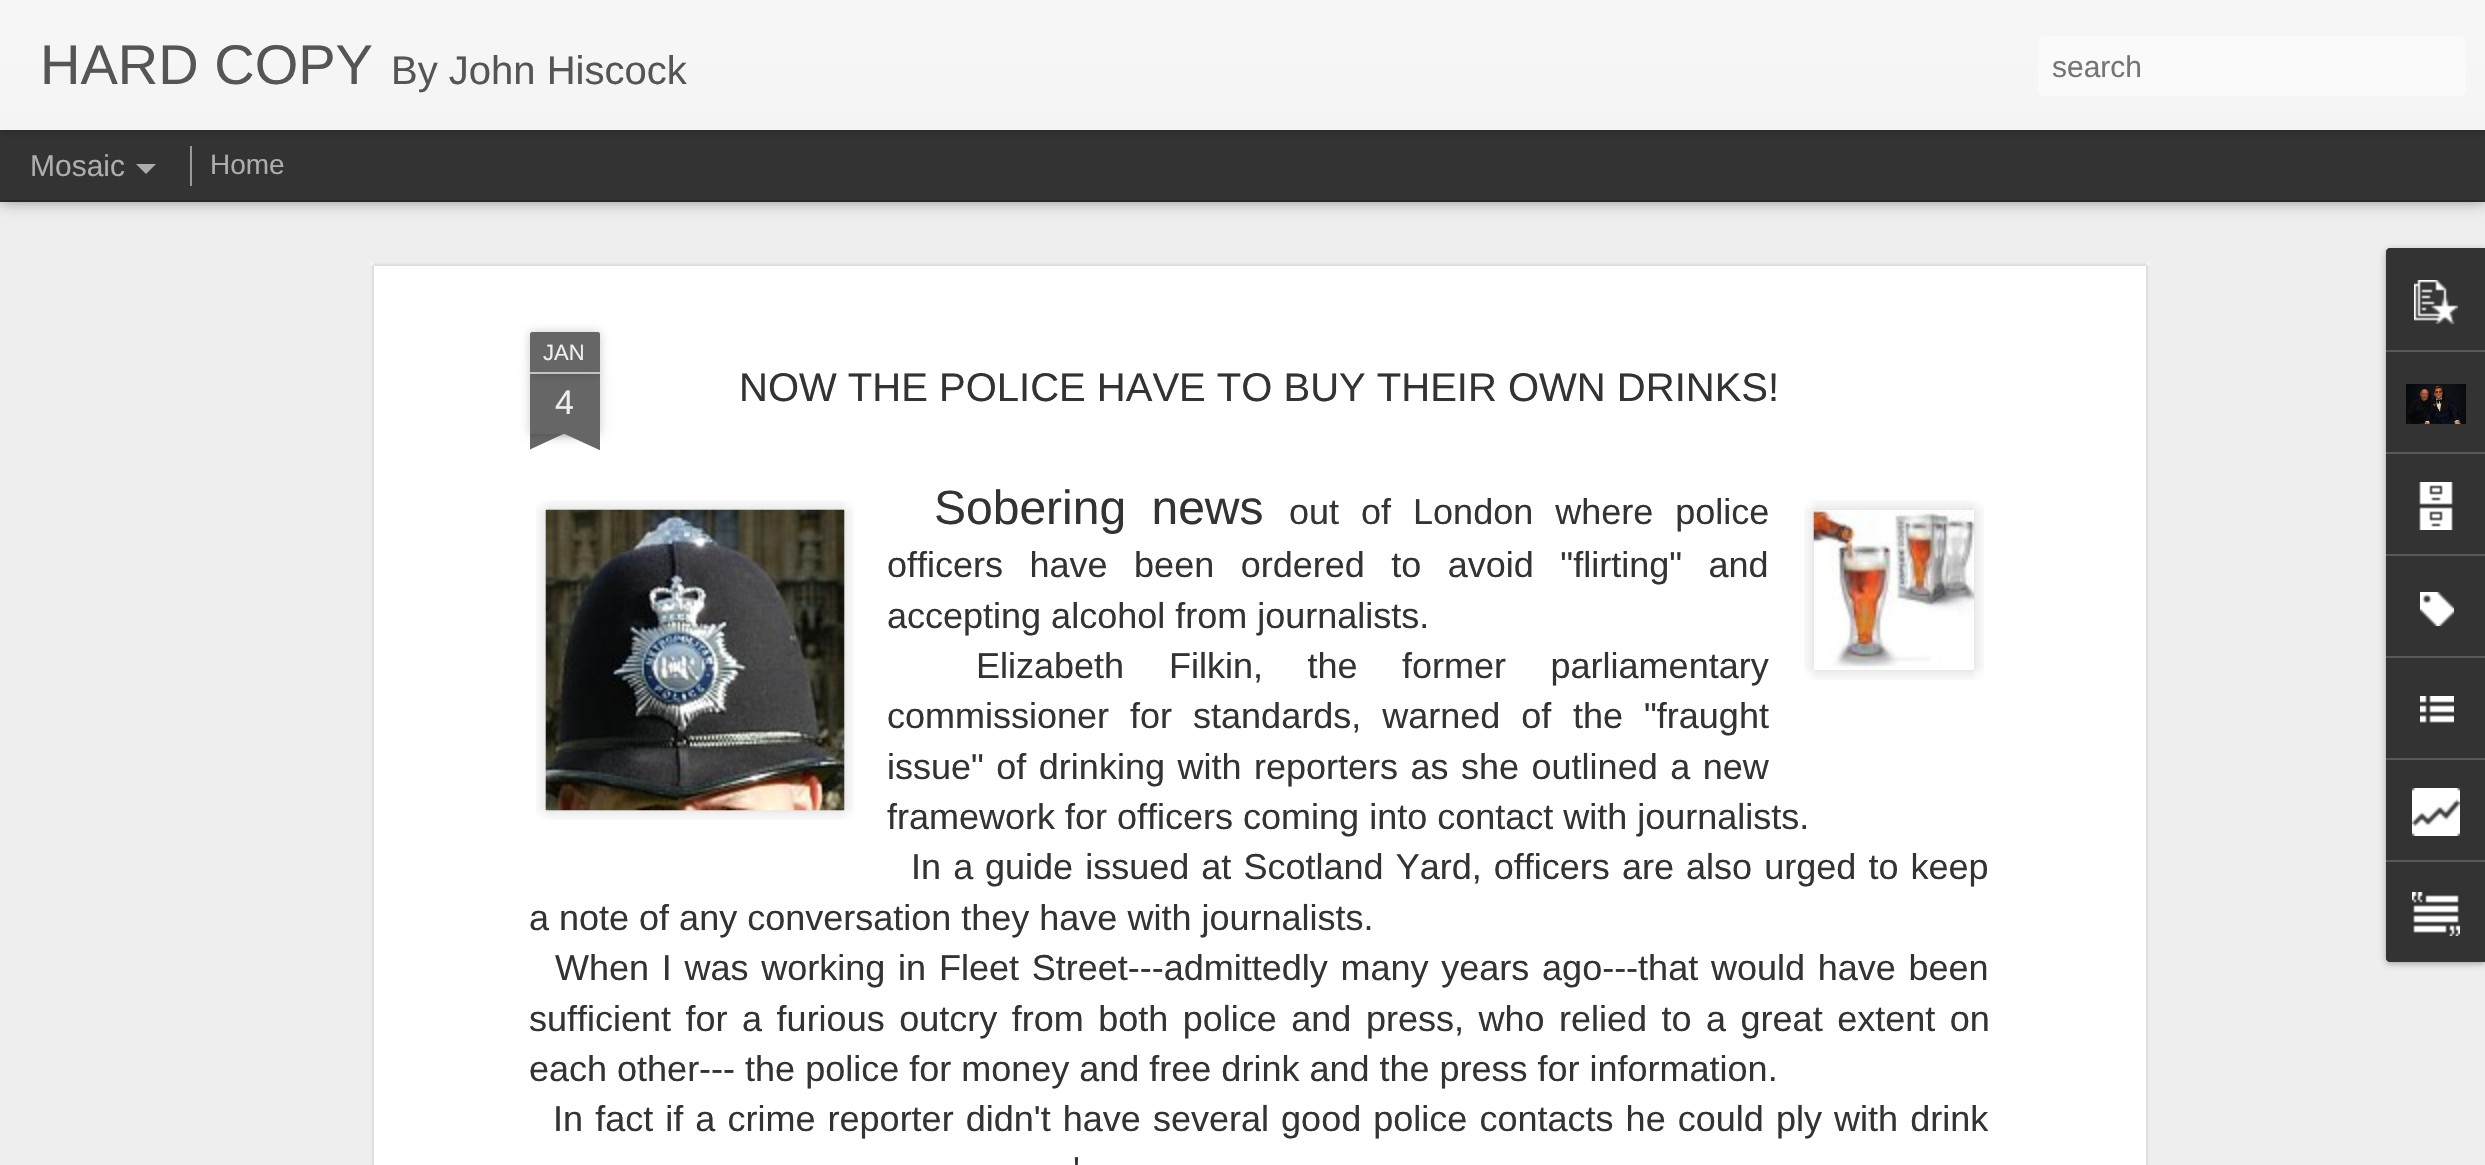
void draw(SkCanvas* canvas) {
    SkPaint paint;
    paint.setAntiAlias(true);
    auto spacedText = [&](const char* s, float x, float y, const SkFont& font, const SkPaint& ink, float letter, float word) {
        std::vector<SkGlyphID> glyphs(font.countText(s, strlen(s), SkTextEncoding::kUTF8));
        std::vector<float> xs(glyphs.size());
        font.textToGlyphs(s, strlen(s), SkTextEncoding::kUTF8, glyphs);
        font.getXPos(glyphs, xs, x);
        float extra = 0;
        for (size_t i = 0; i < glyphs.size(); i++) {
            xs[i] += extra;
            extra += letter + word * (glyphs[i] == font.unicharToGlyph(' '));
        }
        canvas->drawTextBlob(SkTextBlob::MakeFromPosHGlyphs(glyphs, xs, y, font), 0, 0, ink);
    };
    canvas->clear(0xFF333333);
    paint.setColor(0xFFEEEEEE);
    canvas->drawRect(SkRect::MakeXYWH(0, 202, 2485, 963), paint);
    paint.setColor(0x80000000);
    paint.setMaskFilter(SkMaskFilter::MakeBlur(kNormal_SkBlurStyle, 8));
    canvas->drawRect(SkRect::MakeXYWH(0, 130, 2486, 70), paint);
    paint.setMaskFilter(nullptr);
    paint.setColor(0xFF333333);
    canvas->drawRect(SkRect::MakeXYWH(0, 130, 2485, 70), paint);
    paint.setColor(0x4D000000);
    paint.setMaskFilter(SkMaskFilter::MakeBlur(kNormal_SkBlurStyle, 5));
    canvas->drawRect(SkRect::MakeXYWH(0, 0, 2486, 130), paint);
    paint.setMaskFilter(nullptr);
    {
        const SkColor colors[] = {0xFFF7F7F7, 0xFFF4F4F4};
        const float stops[] = {0, 1};
        const SkPoint ends[] = {{0, 0}, {0, 130}};
        paint.setShader(SkGradientShader::MakeLinear(ends, colors, stops, 2, SkTileMode::kClamp));
        paint.setAlpha(255);
    }
    canvas->drawRect(SkRect::MakeXYWH(0, 0, 2485, 130), paint);
    SkFont font1(fontMgr->matchFamilyStyle("Liberation Sans", SkFontStyle::Normal()), 56);
    font1.setSubpixel(true);
    paint.setShader(nullptr);
    paint.setColor(0xFF555555);
    canvas->drawString("HARD COPY", 40, 84, font1, paint);
    SkFont font2(fontMgr->matchFamilyStyle("Liberation Sans", SkFontStyle::Normal()), 40);
    font2.setSubpixel(true);
    canvas->drawString("By John Hiscock", 391, 84, font2, paint);
    paint.setColor(0xFFFAFAFA);
    canvas->drawRoundRect(SkRect::MakeXYWH(2038, 36, 428, 60), 6, 6, paint);
    SkFont font3(fontMgr->matchFamilyStyle("Liberation Sans", SkFontStyle::Normal()), 30);
    font3.setSubpixel(true);
    paint.setColor(0xFF757575);
    canvas->drawString("search", 2052, 77, font3, paint);
    paint.setColor(0xFFADADAD);
    canvas->drawString("Mosaic", 30, 176, font3, paint);
    canvas->drawPath(SkPathBuilder().moveTo(136, 164).lineTo(156, 164).lineTo(146, 174).close().detach(), paint);
    paint.setColor(0xFF999999);
    canvas->drawRect(SkRect::MakeXYWH(190, 146, 2, 40), paint);
    SkFont font4(fontMgr->matchFamilyStyle("Liberation Sans", SkFontStyle::Normal()), 28);
    font4.setSubpixel(true);
    paint.setColor(0xFFADADAD);
    canvas->drawString("Home", 210, 174, font4, paint);
    paint.setColor(0xFFFFFFFF);
    canvas->drawRect(SkRect::MakeXYWH(370, 262, 1780, 903), paint);
    canvas->drawImageRect(SkImages::DeferredFromEncodedData(SkData::MakeFromFileName("img1.png")), SkRect::MakeXYWH(370, 262, 1780, 903), SkSamplingOptions());
    paint.setColor(0x33000000);
    paint.setMaskFilter(SkMaskFilter::MakeBlur(kNormal_SkBlurStyle, 5));
    canvas->drawRect(SkRect::MakeXYWH(530, 374, 70, 60), paint);
    paint.setMaskFilter(nullptr);
    paint.setColor(0xFF666666);
    canvas->drawRect(SkRect::MakeXYWH(530, 374, 70, 60), paint);
    paint.setColor(0x33000000);
    paint.setMaskFilter(SkMaskFilter::MakeBlur(kNormal_SkBlurStyle, 5));
    canvas->drawRoundRect(SkRect::MakeXYWH(530, 332, 70, 42), 2, 2, paint);
    paint.setMaskFilter(nullptr);
    paint.setColor(0xFF666666);
    canvas->drawPath(SkPathBuilder().moveTo(532, 332).lineTo(598, 332).cubicTo(599, 332, 600, 333, 600, 334).lineTo(600, 374).lineTo(530, 374).lineTo(530, 334).cubicTo(530, 333, 531, 332, 532, 332).close().detach(), paint);
    paint.setColor(0xFFC2C2C2);
    canvas->drawRect(SkRect::MakeXYWH(530, 372, 70, 2), paint);
    SkFont font5(fontMgr->matchFamilyStyle("Liberation Sans", SkFontStyle::Normal()), 22);
    font5.setSubpixel(true);
    paint.setColor(0xFFEEEEEE);
    canvas->drawString("JAN", 543, 360, font5, paint);
    SkFont font6(fontMgr->matchFamilyStyle("Liberation Sans", SkFontStyle::Normal()), 34);
    font6.setSubpixel(true);
    canvas->drawString("4", 555, 414, font6, paint);
    canvas->save();
    canvas->clipRect(SkRect::MakeXYWH(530, 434, 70, 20));
    paint.setColor(0x33000000);
    paint.setMaskFilter(SkMaskFilter::MakeBlur(kNormal_SkBlurStyle, 5));
    canvas->drawRect(SkRect::MakeXYWH(512, 414, 100, 20), paint);
    paint.setMaskFilter(nullptr);
    canvas->restore();
    canvas->save();
    canvas->clipRect(SkRect::MakeXYWH(530, 434, 70, 20));
    paint.setColor(0xFF666666);
    canvas->drawPath(SkPathBuilder().moveTo(511, 436).lineTo(602, 394).lineTo(611, 412).lineTo(520, 454).close().detach(), paint);
    canvas->restore();
    canvas->save();
    canvas->clipRect(SkRect::MakeXYWH(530, 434, 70, 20));
    paint.setColor(0x33000000);
    paint.setMaskFilter(SkMaskFilter::MakeBlur(kNormal_SkBlurStyle, 5));
    canvas->drawRect(SkRect::MakeXYWH(518, 414, 100, 20), paint);
    paint.setMaskFilter(nullptr);
    canvas->restore();
    canvas->save();
    canvas->clipRect(SkRect::MakeXYWH(530, 434, 70, 20));
    paint.setColor(0xFF666666);
    canvas->drawPath(SkPathBuilder().moveTo(526, 394).lineTo(617, 436).lineTo(608, 454).lineTo(517, 412).close().detach(), paint);
    canvas->restore();
    paint.setColor(0xFF333333);
    canvas->drawString("NOW THE POLICE HAVE TO BUY THEIR OWN DRINKS!", 739, 401, font2, paint);
    canvas->drawImageRect(SkImages::DeferredFromEncodedData(SkData::MakeFromFileName("img2.png")), SkRect::MakeXYWH(536, 500, 318, 320), SkSamplingOptions());
    canvas->drawImageRect(SkImages::DeferredFromEncodedData(SkData::MakeFromFileName("img3.png")), SkRect::MakeXYWH(545, 509, 300, 302), SkSamplingOptions());
    SkFont font7(fontMgr->matchFamilyStyle("Liberation Sans", SkFontStyle::Normal()), 48);
    font7.setSubpixel(true);
    spacedText("Sobering news", 934, 524, font7, paint, 0, 12);
    SkFont font8(fontMgr->matchFamilyStyle("Liberation Sans", SkFontStyle::Normal()), 36);
    font8.setSubpixel(true);
    spacedText("out of London where police", 1289, 524, font8, paint, 0, 12);
    canvas->drawImageRect(SkImages::DeferredFromEncodedData(SkData::MakeFromFileName("img4.png")), SkRect::MakeXYWH(1804, 500, 180, 180), SkSamplingOptions());
    canvas->drawImageRect(SkImages::DeferredFromEncodedData(SkData::MakeFromFileName("img5.png")), SkRect::MakeXYWH(1813, 509, 162, 162), SkSamplingOptions());
    spacedText("officers have been ordered to avoid \"flirting\" and", 887, 577, font8, paint, 0, 16.5f);
    canvas->drawString("accepting alcohol from journalists.", 887, 628, font8, paint);
    canvas->drawString("Elizabeth", 976, 678, font8, paint);
    spacedText("Filkin, the former parliamentary", 1169, 678, font8, paint, 0, 34.5f);
    spacedText("commissioner for standards, warned of", 887, 728, font8, paint, 0, 11);
    spacedText("the \"fraught", 1573, 728, font8, paint, 0, 11);
    spacedText("issue\" of drinking with reporters as she outlined a new", 887, 779, font8, paint, 0, 2.5f);
    canvas->drawString("framework for officers coming into contact with journalists.", 887, 829, font8, paint);
    spacedText("In a", 911, 879, font8, paint, 0, 2.1f);
    spacedText("guide issued at Scotland Yard, officers are also urged to keep", 985, 879, font8, paint, 0, 2.1f);
    canvas->drawString("a note of any conversation they have with journalists.", 529, 930, font8, paint);
    spacedText("When I was working in Fleet Street---admittedly many years ago---that would have been", 555, 980, font8, paint, 0, 2.75f);
    spacedText("sufficient for a furious outcry from both police and press, who relied to a great extent on", 529, 1031, font8, paint, 0, 4.5f);
    canvas->drawString("each other--- the police for money and free drink and the press for information.", 529, 1081, font8, paint);
    spacedText("In fact if a crime reporter didn't have several good police contacts he could ply with drink", 553, 1131, font8, paint, 0, 2.1f);
    canvas->drawString("'", 1073, 1182, font8, paint);
    paint.setColor(0x4D000000);
    paint.setMaskFilter(SkMaskFilter::MakeBlur(kNormal_SkBlurStyle, 3));
    canvas->drawRoundRect(SkRect::MakeXYWH(2386, 250, 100, 714), 4, 4, paint);
    paint.setMaskFilter(nullptr);
    paint.setColor(0xFF333333);
    canvas->drawPath(SkPathBuilder().moveTo(2390, 248).lineTo(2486, 248).lineTo(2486, 962).lineTo(2390, 962).cubicTo(2388, 962, 2386, 960, 2386, 958).lineTo(2386, 252).cubicTo(2386, 250, 2388, 248, 2390, 248).close().detach(), paint);
    canvas->drawPath(SkPathBuilder().moveTo(2390, 248).lineTo(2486, 248).lineTo(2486, 350).lineTo(2386, 350).lineTo(2386, 252).cubicTo(2386, 250, 2388, 248, 2390, 248).close().detach(), paint);
    canvas->drawImageRect(SkImages::DeferredFromEncodedData(SkData::MakeFromFileName("img6.png")), SkRect::MakeXYWH(2414, 280, 44, 44), SkSamplingOptions());
    paint.setColor(0xFF585858);
    canvas->drawRect(SkRect::MakeXYWH(2386, 350, 99, 2), paint);
    canvas->drawImageRect(SkImages::DeferredFromEncodedData(SkData::MakeFromFileName("img7.png")), SkRect::MakeXYWH(2406, 384, 60, 40), SkSamplingOptions());
    canvas->drawRect(SkRect::MakeXYWH(2386, 452, 99, 2), paint);
    canvas->drawImageRect(SkImages::DeferredFromEncodedData(SkData::MakeFromFileName("img8.png")), SkRect::MakeXYWH(2419, 482, 34, 48), SkSamplingOptions());
    canvas->drawRect(SkRect::MakeXYWH(2386, 554, 99, 2), paint);
    canvas->drawImageRect(SkImages::DeferredFromEncodedData(SkData::MakeFromFileName("img9.png")), SkRect::MakeXYWH(2420, 592, 34, 34), SkSamplingOptions());
    canvas->drawRect(SkRect::MakeXYWH(2386, 656, 99, 2), paint);
    canvas->drawImageRect(SkImages::DeferredFromEncodedData(SkData::MakeFromFileName("img10.png")), SkRect::MakeXYWH(2420, 696, 34, 27), SkSamplingOptions());
    canvas->drawRect(SkRect::MakeXYWH(2386, 758, 99, 2), paint);
    canvas->drawImageRect(SkImages::DeferredFromEncodedData(SkData::MakeFromFileName("img11.png")), SkRect::MakeXYWH(2412, 788, 48, 48), SkSamplingOptions());
    paint.setColor(0xFF333333);
    canvas->drawPath(SkPathBuilder().moveTo(2386, 860).lineTo(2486, 860).lineTo(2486, 962).lineTo(2390, 962).cubicTo(2388, 962, 2386, 960, 2386, 958).close().detach(), paint);
    paint.setColor(0xFF585858);
    canvas->drawRect(SkRect::MakeXYWH(2386, 860, 99, 2), paint);
    canvas->drawImageRect(SkImages::DeferredFromEncodedData(SkData::MakeFromFileName("img12.png")), SkRect::MakeXYWH(2412, 892, 48, 44), SkSamplingOptions());
}
